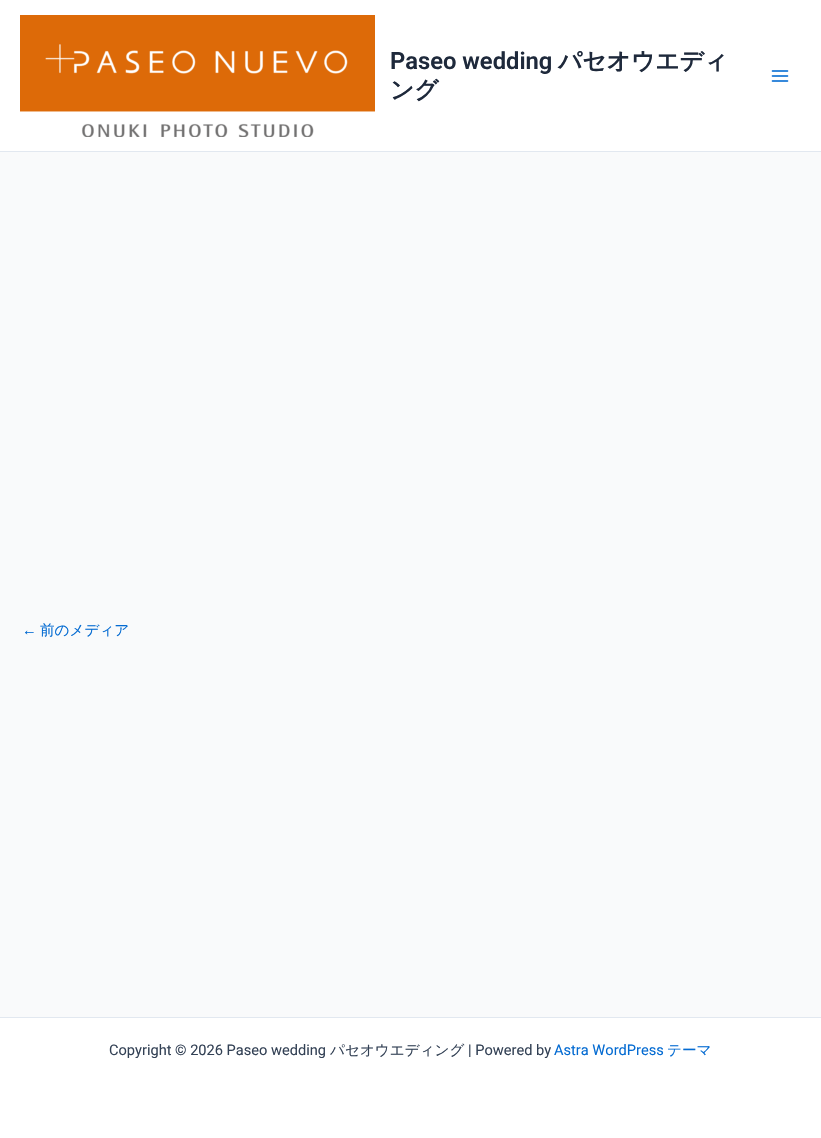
void draw(SkCanvas* canvas) {
    SkPaint paint;
    paint.setAntiAlias(true);
    canvas->clear(0xFFF9FAFB);
    paint.setColor(0xFFFFFFFF);
    canvas->drawRect(SkRect::MakeXYWH(0, 0, 821, 151), paint);
    paint.setColor(0xFFE2E8F0);
    canvas->drawRect(SkRect::MakeXYWH(0, 151, 821, 1), paint);
    canvas->drawImageRect(SkImages::DeferredFromEncodedData(SkData::MakeFromFileName("img1.png")), SkRect::MakeXYWH(20, 15, 355, 122), SkSamplingOptions());
    SkFont font1(fontMgr->matchFamilyStyle("Roboto", SkFontStyle(600, SkFontStyle::kNormal_Width, SkFontStyle::kUpright_Slant)), 23.75f);
    font1.setSubpixel(true);
    paint.setColor(0xFF1E293B);
    canvas->drawString("Paseo wedding", 390, 69, font1, paint);
    SkFont font2(fontMgr->matchFamilyStyle("WenQuanYi Zen Hei", SkFontStyle::Bold()), 23.75f);
    font2.setSubpixel(true);
    canvas->drawString("パセオウエディ", 558, 69, font2, paint);
    canvas->drawString("ング", 390, 98, font2, paint);
    canvas->drawImageRect(SkImages::DeferredFromEncodedData(SkData::MakeFromFileName("img2.png")), SkRect::MakeXYWH(771, 70, 18, 12), SkSamplingOptions());
    SkFont font3(fontMgr->matchFamilyStyle("Liberation Sans", SkFontStyle::Normal()), 14.6f);
    font3.setSubpixel(true);
    paint.setColor(0xFF046BD2);
    canvas->drawString("←", 22, 635, font3, paint);
    SkFont font4(fontMgr->matchFamilyStyle("WenQuanYi Zen Hei", SkFontStyle(500, SkFontStyle::kNormal_Width, SkFontStyle::kUpright_Slant)), 14.6f);
    font4.setSubpixel(true);
    canvas->drawString("前のメディア", 40, 635, font4, paint);
    paint.setColor(0xFFFFFFFF);
    canvas->drawRect(SkRect::MakeXYWH(0, 1018, 821, 120), paint);
    paint.setColor(0xFFE2E8F0);
    canvas->drawRect(SkRect::MakeXYWH(0, 1017, 821, 1), paint);
    SkFont font5(fontMgr->matchFamilyStyle("Roboto", SkFontStyle::Normal()), 14.6f);
    font5.setSubpixel(true);
    paint.setColor(0xFF334155);
    canvas->drawString("Copyright © 2026 Paseo wedding", 109, 1055, font5, paint);
    canvas->drawString("パセオウエディング", 330, 1055, font4, paint);
    canvas->drawString("| Powered by", 468, 1055, font5, paint);
    paint.setColor(0xFF046BD2);
    canvas->drawString("Astra WordPress", 554, 1055, font5, paint);
    canvas->drawString("テーマ", 667, 1055, font4, paint);
}
